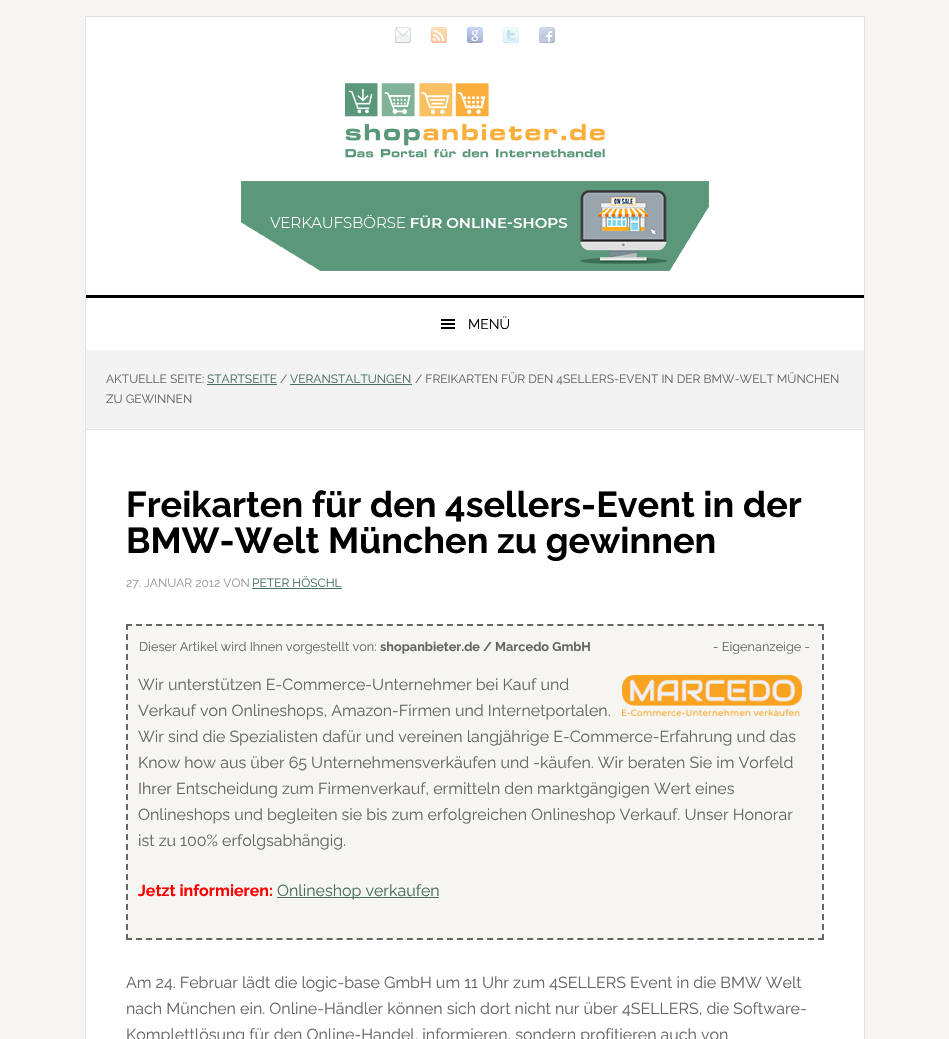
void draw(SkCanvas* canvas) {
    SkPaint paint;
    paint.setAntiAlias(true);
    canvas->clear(0xFFF6F5F2);
    paint.setColor(0xFFFFFFFF);
    canvas->drawRect(SkRect::MakeXYWH(85.5f, 16.5f, 779, 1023), paint);
    paint.setStyle(SkPaint::kStroke_Style);
    paint.setStrokeWidth(1);
    paint.setColor(0xFFE3E3E3);
    canvas->drawRect(SkRect::MakeXYWH(85.5f, 16.5f, 779, 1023), paint);
    canvas->drawImageRect(SkImages::DeferredFromEncodedData(SkData::MakeFromFileName("img1.png")), SkRect::MakeXYWH(395, 27, 16, 16), SkSamplingOptions());
    canvas->drawImageRect(SkImages::DeferredFromEncodedData(SkData::MakeFromFileName("img2.png")), SkRect::MakeXYWH(431, 27, 16, 16), SkSamplingOptions());
    canvas->drawImageRect(SkImages::DeferredFromEncodedData(SkData::MakeFromFileName("img3.png")), SkRect::MakeXYWH(467, 27, 16, 16), SkSamplingOptions());
    canvas->drawImageRect(SkImages::DeferredFromEncodedData(SkData::MakeFromFileName("img4.png")), SkRect::MakeXYWH(503, 27, 16, 16), SkSamplingOptions());
    canvas->drawImageRect(SkImages::DeferredFromEncodedData(SkData::MakeFromFileName("img5.png")), SkRect::MakeXYWH(539, 27, 16, 16), SkSamplingOptions());
    paint.setStyle(SkPaint::kFill_Style);
    paint.setColor(0xFF000000);
    canvas->drawRect(SkRect::MakeXYWH(86, 295, 778, 3), paint);
    canvas->drawImageRect(SkImages::DeferredFromEncodedData(SkData::MakeFromFileName("img6.png")), SkRect::MakeXYWH(345, 83, 260, 75), SkSamplingOptions());
    canvas->drawImageRect(SkImages::DeferredFromEncodedData(SkData::MakeFromFileName("img7.png")), SkRect::MakeXYWH(241, 181, 468, 90), SkSamplingOptions());
    canvas->drawImageRect(SkImages::DeferredFromEncodedData(SkData::MakeFromFileName("img8.png")), SkRect::MakeXYWH(441, 319, 14, 10), SkSamplingOptions());
    SkFont font1(fontMgr->matchFamilyStyle("Raleway", SkFontStyle::Normal()), 14);
    font1.setSubpixel(true);
    canvas->drawString("MENÜ", 468, 329, font1, paint);
    paint.setColor(0xFFF3F3F3);
    canvas->drawRect(SkRect::MakeXYWH(86, 350, 778, 79), paint);
    paint.setColor(0xFFE3E3E3);
    canvas->drawRect(SkRect::MakeXYWH(86, 429, 778, 1), paint);
    SkFont font2(fontMgr->matchFamilyStyle("Raleway", SkFontStyle::Normal()), 12);
    font2.setSubpixel(true);
    paint.setColor(0xFF666666);
    canvas->drawString("AKTUELLE SEITE:", 106, 383, font2, paint);
    paint.setColor(0xFF476F5D);
    canvas->drawString("STARTSEITE", 207, 383, font2, paint);
    canvas->drawRect(SkRect::MakeXYWH(207, 384, 70, 1), paint);
    paint.setColor(0xFF666666);
    canvas->drawString("/", 280, 383, font2, paint);
    paint.setColor(0xFF476F5D);
    canvas->drawString("VERANSTALTUNGEN", 290, 383, font2, paint);
    canvas->drawRect(SkRect::MakeXYWH(290, 384, 122, 1), paint);
    paint.setColor(0xFF666666);
    canvas->drawString("/ FREIKARTEN FÜR DEN 4SELLERS-EVENT IN DER BMW-WELT MÜNCHEN", 415, 383, font2, paint);
    canvas->drawString("ZU GEWINNEN", 106, 403, font2, paint);
    SkFont font3(fontMgr->matchFamilyStyle("Raleway", SkFontStyle::Bold()), 36);
    font3.setSubpixel(true);
    paint.setColor(0xFF000000);
    canvas->drawString("Freikarten für den 4sellers-Event in der", 126, 517, font3, paint);
    canvas->drawString("BMW-Welt München zu gewinnen", 126, 553, font3, paint);
    paint.setColor(0xFF999999);
    canvas->drawString("27. JANUAR 2012 VON", 126, 587, font2, paint);
    paint.setColor(0xFF476F5D);
    canvas->drawString("PETER HÖSCHL", 252, 587, font2, paint);
    canvas->drawRect(SkRect::MakeXYWH(252, 588, 90, 1), paint);
    paint.setColor(0xFFF6F5F2);
    canvas->drawRect(SkRect::MakeXYWH(126, 624, 698, 316), paint);
    paint.setStyle(SkPaint::kStroke_Style);
    paint.setStrokeWidth(2);
    paint.setColor(0xFF666666);
    paint.setPathEffect(SkDashPathEffect::Make({{6, 4.03f}}, 0));
    canvas->drawPath(SkPathBuilder().moveTo(126, 625).lineTo(824, 625).detach(), paint);
    paint.setPathEffect(nullptr);
    paint.setPathEffect(SkDashPathEffect::Make({{6, 4}}, 0));
    canvas->drawPath(SkPathBuilder().moveTo(823, 624).lineTo(823, 940).detach(), paint);
    paint.setPathEffect(nullptr);
    paint.setPathEffect(SkDashPathEffect::Make({{6, 4.03f}}, 0));
    canvas->drawPath(SkPathBuilder().moveTo(126, 939).lineTo(824, 939).detach(), paint);
    paint.setPathEffect(nullptr);
    paint.setPathEffect(SkDashPathEffect::Make({{6, 4}}, 0));
    canvas->drawPath(SkPathBuilder().moveTo(127, 624).lineTo(127, 940).detach(), paint);
    paint.setPathEffect(nullptr);
    SkFont font4(fontMgr->matchFamilyStyle("Raleway", SkFontStyle::Normal()), 12.75f);
    font4.setSubpixel(true);
    paint.setStyle(SkPaint::kFill_Style);
    canvas->drawString("Dieser Artikel wird Ihnen vorgestellt von:", 139, 651, font4, paint);
    SkFont font5(fontMgr->matchFamilyStyle("Raleway", SkFontStyle::Bold()), 12.75f);
    font5.setSubpixel(true);
    canvas->drawString("shopanbieter.de / Marcedo GmbH", 380, 651, font5, paint);
    canvas->drawString("- Eigenanzeige -", 713, 651, font4, paint);
    SkFont font6(fontMgr->matchFamilyStyle("Raleway", SkFontStyle::Normal()), 16);
    font6.setSubpixel(true);
    canvas->drawString("Wir unterstützen E-Commerce-Unternehmer bei Kauf und", 138, 690, font6, paint);
    canvas->drawImageRect(SkImages::DeferredFromEncodedData(SkData::MakeFromFileName("img9.png")), SkRect::MakeXYWH(622, 675, 180, 41), SkSamplingOptions());
    canvas->drawString("Verkauf von Onlineshops, Amazon-Firmen und Internetportalen.", 138, 716, font6, paint);
    canvas->drawString("Wir sind die Spezialisten dafür und vereinen langjährige E-Commerce-Erfahrung und das", 138, 742, font6, paint);
    canvas->drawString("Know how aus über 65 Unternehmensverkäufen und -käufen. Wir beraten Sie im Vorfeld", 138, 768, font6, paint);
    canvas->drawString("Ihrer Entscheidung zum Firmenverkauf, ermitteln den marktgängigen Wert eines", 138, 794, font6, paint);
    canvas->drawString("Onlineshops und begleiten sie bis zum erfolgreichen Onlineshop Verkauf. Unser Honorar", 138, 820, font6, paint);
    canvas->drawString("ist zu 100% erfolgsabhängig.", 138, 846, font6, paint);
    SkFont font7(fontMgr->matchFamilyStyle("Raleway", SkFontStyle::Bold()), 16);
    font7.setSubpixel(true);
    paint.setColor(0xFFFF0000);
    canvas->drawString("Jetzt informieren:", 138, 896, font7, paint);
    paint.setColor(0xFF476F5D);
    canvas->drawRect(SkRect::MakeXYWH(277, 897, 162, 1), paint);
    canvas->drawString("Onlineshop verkaufen", 277, 896, font6, paint);
    paint.setColor(0xFF666666);
    canvas->drawString("Am 24. Februar lädt die logic-base GmbH um 11 Uhr zum 4SELLERS Event in die BMW Welt", 126, 988, font6, paint);
    canvas->drawString("nach München ein. Online-Händler können sich dort nicht nur über 4SELLERS, die Software-", 126, 1014, font6, paint);
    canvas->drawString("Komplettlösung für den Online-Handel, informieren, sondern profitieren auch von", 126, 1040, font6, paint);
}
